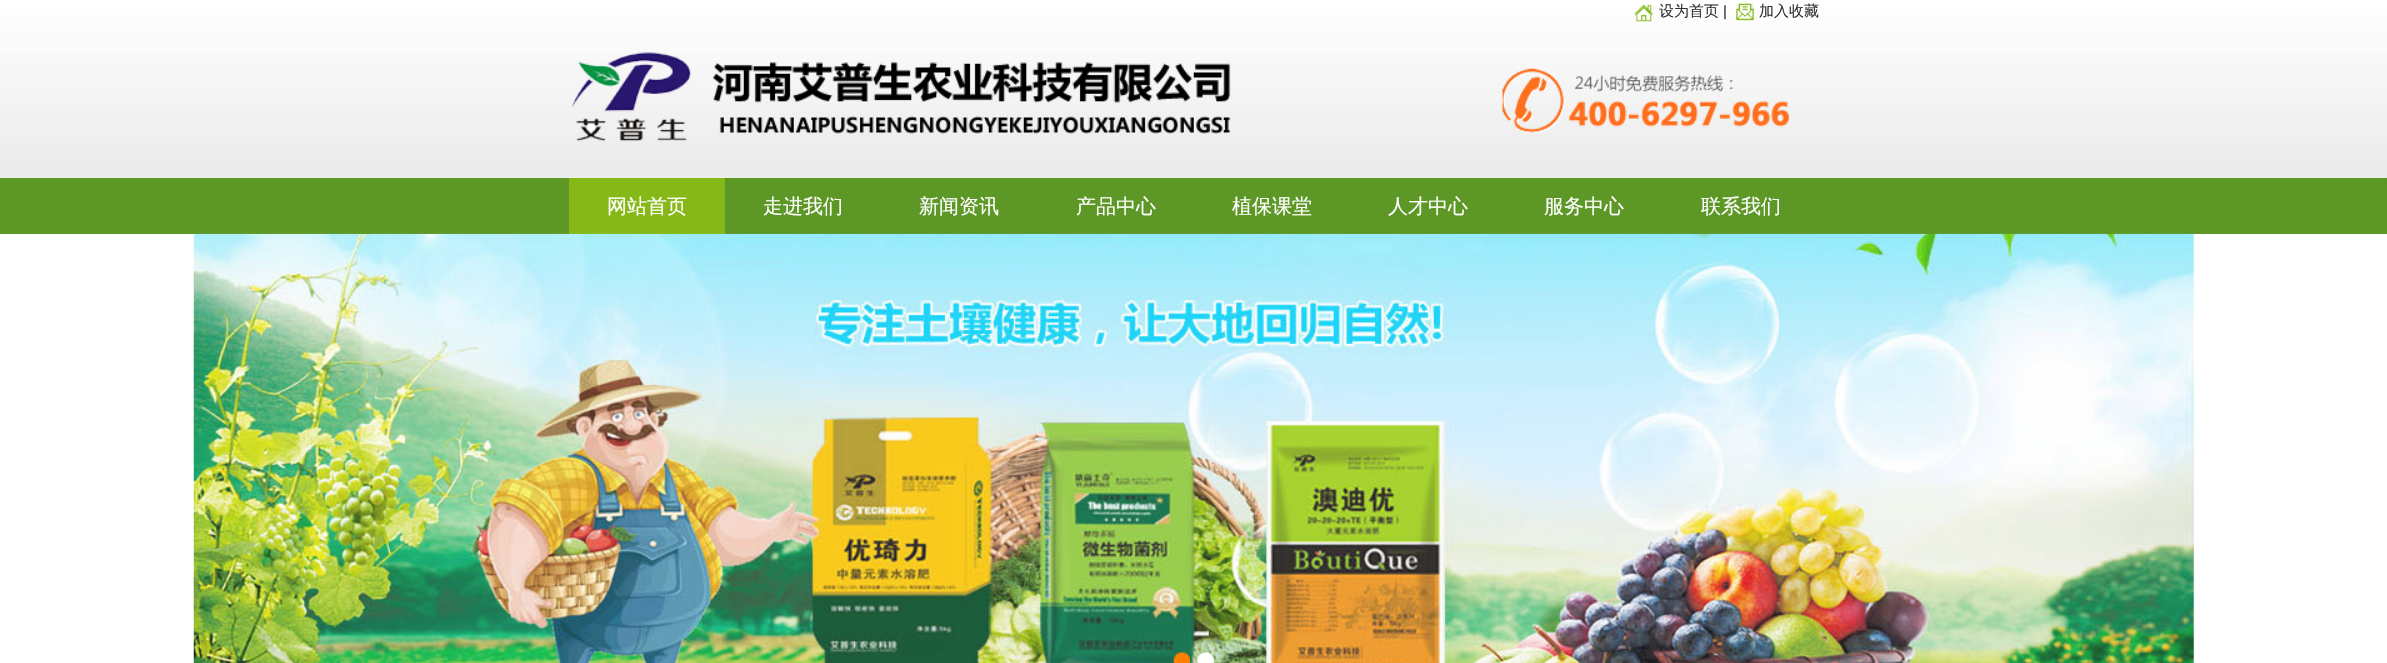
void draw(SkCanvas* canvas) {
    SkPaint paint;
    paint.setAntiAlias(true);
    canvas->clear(0xFFFFFFFF);
    canvas->drawImageRect(SkImages::DeferredFromEncodedData(SkData::MakeFromFileName("img1.png")), SkRect::MakeXYWH(0, 176, 2387, 2), SkSamplingOptions());
    canvas->drawImageRect(SkImages::DeferredFromEncodedData(SkData::MakeFromFileName("img2.png")), SkRect::MakeXYWH(0, 0, 2387, 176), SkSamplingOptions());
    canvas->drawImageRect(SkImages::DeferredFromEncodedData(SkData::MakeFromFileName("img3.png")), SkRect::MakeXYWH(1634, 4, 19, 18), SkSamplingOptions());
    SkFont font1(fontMgr->matchFamilyStyle("WenQuanYi Zen Hei", SkFontStyle(500, SkFontStyle::kNormal_Width, SkFontStyle::kUpright_Slant)), 15);
    font1.setSubpixel(true);
    paint.setColor(0xFF333333);
    canvas->drawString("设为首页", 1659, 16, font1, paint);
    SkFont font2(fontMgr->matchFamilyStyle("Liberation Sans", SkFontStyle::Normal()), 15);
    font2.setSubpixel(true);
    canvas->drawString("|", 1723, 16, font2, paint);
    canvas->drawImageRect(SkImages::DeferredFromEncodedData(SkData::MakeFromFileName("img4.png")), SkRect::MakeXYWH(1736, 3, 18, 18), SkSamplingOptions());
    canvas->drawString("加入收藏", 1759, 16, font1, paint);
    canvas->drawImageRect(SkImages::DeferredFromEncodedData(SkData::MakeFromFileName("img5.png")), SkRect::MakeXYWH(571, 52, 660, 90), SkSamplingOptions());
    canvas->drawImageRect(SkImages::DeferredFromEncodedData(SkData::MakeFromFileName("img6.png")), SkRect::MakeXYWH(1502, 68, 287, 65), SkSamplingOptions());
    paint.setColor(0xFF5D9827);
    canvas->drawRect(SkRect::MakeXYWH(0, 178, 2387, 56), paint);
    paint.setColor(0xFF86B918);
    canvas->drawRect(SkRect::MakeXYWH(569, 178, 156, 56), paint);
    SkFont font3(fontMgr->matchFamilyStyle("WenQuanYi Zen Hei", SkFontStyle(500, SkFontStyle::kNormal_Width, SkFontStyle::kUpright_Slant)), 20);
    font3.setSubpixel(true);
    paint.setColor(0xFFFFFFFF);
    canvas->drawString("网站首页", 607, 213, font3, paint);
    canvas->drawString("走进我们", 763, 213, font3, paint);
    canvas->drawString("新闻资讯", 919, 213, font3, paint);
    canvas->drawString("产品中心", 1076, 213, font3, paint);
    canvas->drawString("植保课堂", 1232, 213, font3, paint);
    canvas->drawString("人才中心", 1388, 213, font3, paint);
    canvas->drawString("服务中心", 1544, 213, font3, paint);
    canvas->drawString("联系我们", 1701, 213, font3, paint);
    canvas->drawImageRect(SkImages::DeferredFromEncodedData(SkData::MakeFromFileName("img7.png")), SkRect::MakeXYWH(193, 233, 2001, 430), SkSamplingOptions());
    canvas->drawImageRect(SkImages::DeferredFromEncodedData(SkData::MakeFromFileName("img8.png")), SkRect::MakeXYWH(1173, 652, 17, 11), SkSamplingOptions());
    canvas->drawImageRect(SkImages::DeferredFromEncodedData(SkData::MakeFromFileName("img9.png")), SkRect::MakeXYWH(1197, 652, 17, 11), SkSamplingOptions());
}
